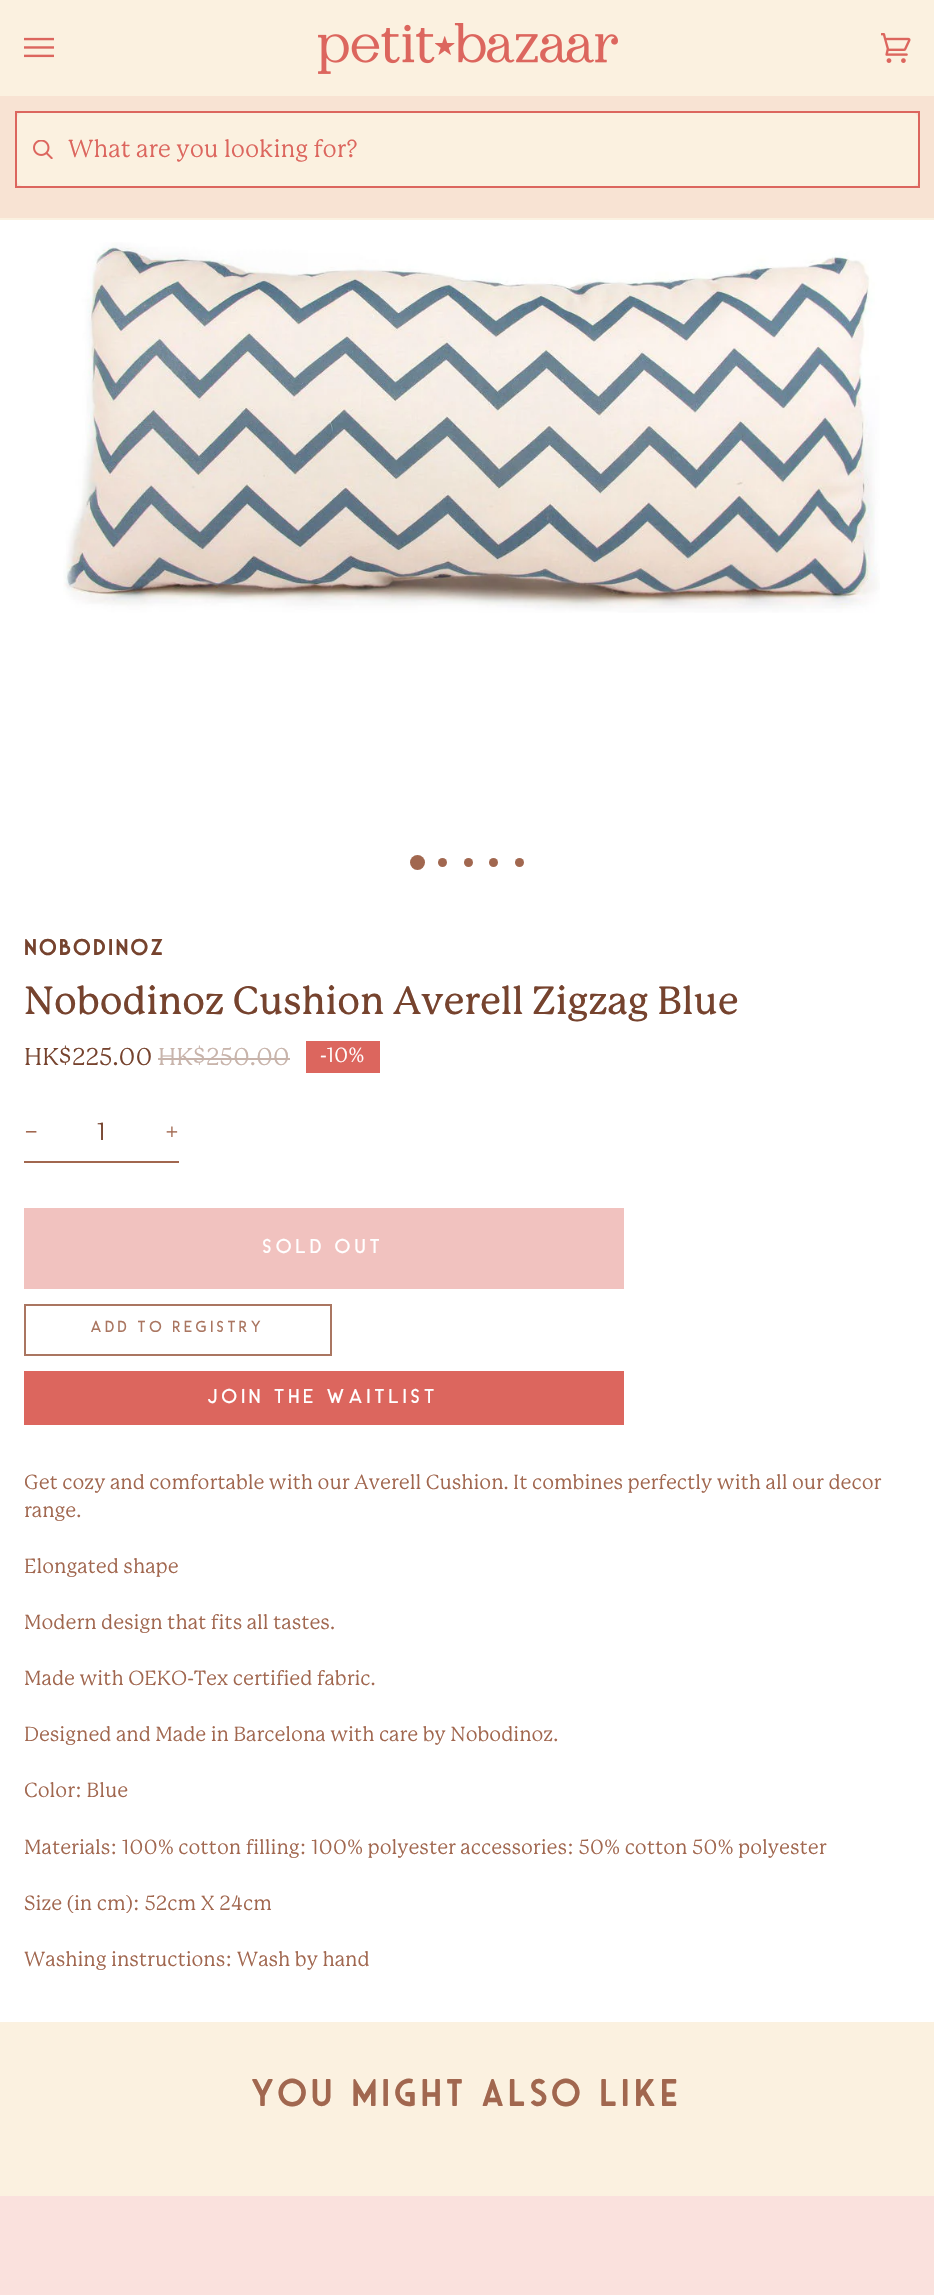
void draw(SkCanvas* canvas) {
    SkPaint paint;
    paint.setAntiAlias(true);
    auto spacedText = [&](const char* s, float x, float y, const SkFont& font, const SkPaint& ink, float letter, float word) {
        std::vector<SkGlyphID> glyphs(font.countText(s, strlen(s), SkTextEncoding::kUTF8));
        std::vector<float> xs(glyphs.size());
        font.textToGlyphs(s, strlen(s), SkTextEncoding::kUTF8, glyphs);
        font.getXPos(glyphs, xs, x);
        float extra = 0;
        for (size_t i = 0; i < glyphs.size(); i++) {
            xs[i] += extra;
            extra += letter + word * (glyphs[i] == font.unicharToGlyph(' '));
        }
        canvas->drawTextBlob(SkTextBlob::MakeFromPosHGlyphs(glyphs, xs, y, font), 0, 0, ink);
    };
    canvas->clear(0xFFFFFFFF);
    paint.setColor(0xFFFBF1E0);
    canvas->drawRect(SkRect::MakeXYWH(0, 218, 934, 2), paint);
    canvas->drawRect(SkRect::MakeXYWH(0, 0, 934, 96), paint);
    canvas->drawImageRect(SkImages::DeferredFromEncodedData(SkData::MakeFromFileName("img1.png")), SkRect::MakeXYWH(24, 37, 30, 21), SkSamplingOptions());
    canvas->drawImageRect(SkImages::DeferredFromEncodedData(SkData::MakeFromFileName("img2.png")), SkRect::MakeXYWH(318, 23, 300, 51), SkSamplingOptions());
    canvas->drawImageRect(SkImages::DeferredFromEncodedData(SkData::MakeFromFileName("img3.png")), SkRect::MakeXYWH(881, 33, 30, 30), SkSamplingOptions());
    paint.setColor(0xFFF8E3D3);
    canvas->drawRect(SkRect::MakeXYWH(0, 96, 934, 122), paint);
    paint.setStyle(SkPaint::kStroke_Style);
    paint.setStrokeWidth(2);
    paint.setColor(0xFFDC665E);
    canvas->drawRect(SkRect::MakeXYWH(16, 112, 903, 75), paint);
    paint.setStyle(SkPaint::kFill_Style);
    paint.setColor(0xFFFBF1E0);
    canvas->drawRoundRect(SkRect::MakeXYWH(18, 114, 899, 71), 4, 4, paint);
    paint.setStyle(SkPaint::kStroke_Style);
    canvas->drawRoundRect(SkRect::MakeXYWH(18, 114, 899, 71), 4, 4, paint);
    canvas->drawImageRect(SkImages::DeferredFromEncodedData(SkData::MakeFromFileName("img4.png")), SkRect::MakeXYWH(33, 140, 20, 19), SkSamplingOptions());
    SkFont font1(fontMgr->matchFamilyStyle("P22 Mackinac", SkFontStyle::Normal()), 24);
    font1.setSubpixel(true);
    paint.setStyle(SkPaint::kFill_Style);
    paint.setColor(0xFFDC665E);
    canvas->drawString("What are you looking for?", 68, 157, font1, paint);
    canvas->drawImageRect(SkImages::DeferredFromEncodedData(SkData::MakeFromFileName("img5.png")), SkRect::MakeXYWH(63, 242, 817, 371), SkSamplingOptions());
    paint.setColor(0xFFA1674F);
    canvas->drawCircle(417.5f, 862.5f, 7.5f, paint);
    canvas->drawCircle(442.5f, 862.5f, 4.5f, paint);
    canvas->drawCircle(468.5f, 862.5f, 4.5f, paint);
    canvas->drawCircle(493.5f, 862.5f, 4.5f, paint);
    canvas->drawCircle(519.5f, 862.5f, 4.5f, paint);
    SkFont font2(fontMgr->matchFamilyStyle("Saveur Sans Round", SkFontStyle(600, SkFontStyle::kNormal_Width, SkFontStyle::kUpright_Slant)), 23);
    font2.setSubpixel(true);
    paint.setColor(0xFF76432E);
    spacedText("nobodinoz", 24, 955, font2, paint, 2.25f, 0);
    SkFont font3(fontMgr->matchFamilyStyle("P22 Mackinac", SkFontStyle(500, SkFontStyle::kNormal_Width, SkFontStyle::kUpright_Slant)), 38.5f);
    font3.setSubpixel(true);
    canvas->drawString("Nobodinoz Cushion Averell Zigzag Blue", 24, 1014, font3, paint);
    SkFont font4(fontMgr->matchFamilyStyle("P22 Mackinac", SkFontStyle::Normal()), 23.75f);
    font4.setSubpixel(true);
    canvas->drawString("HK$225.00", 24, 1065, font4, paint);
    paint.setColor(0xFFC8B4AB);
    canvas->drawString("HK$250.00", 158, 1065, font4, paint);
    canvas->drawRect(SkRect::MakeXYWH(158, 1058, 132, 2), paint);
    paint.setColor(0xFFDC665E);
    canvas->drawRect(SkRect::MakeXYWH(306, 1041, 74, 32), paint);
    SkFont font5(fontMgr->matchFamilyStyle("P22 Mackinac", SkFontStyle::Normal()), 20.05f);
    font5.setSubpixel(true);
    paint.setColor(0xFFFFFFFF);
    canvas->drawString("-10%", 320, 1062, font5, paint);
    SkFont font6(fontMgr->matchFamilyStyle("P22 Mackinac", SkFontStyle(500, SkFontStyle::kNormal_Width, SkFontStyle::kUpright_Slant)), 20.05f);
    font6.setSubpixel(true);
    paint.setColor(0xFFA1674F);
    canvas->drawString("−", 24, 1139, font6, paint);
    canvas->drawRect(SkRect::MakeXYWH(24, 1161, 155, 2), paint);
    paint.setColor(0xFF76432E);
    canvas->drawString("1", 97, 1140, font1, paint);
    paint.setColor(0xFFA1674F);
    canvas->drawString("+", 165, 1139, font6, paint);
    paint.setColor(0xFFF1C2BF);
    canvas->drawRect(SkRect::MakeXYWH(24, 1208, 600, 81), paint);
    SkFont font7(fontMgr->matchFamilyStyle("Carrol", SkFontStyle(600, SkFontStyle::kNormal_Width, SkFontStyle::kUpright_Slant)), 20.05f);
    font7.setSubpixel(true);
    paint.setColor(0xFFFFFFFF);
    spacedText("SOLD OUT", 263, 1253, font7, paint, 4, 0);
    paint.setStyle(SkPaint::kStroke_Style);
    paint.setColor(0xFFAA7661);
    canvas->drawRect(SkRect::MakeXYWH(25, 1305, 306, 50), paint);
    SkFont font8(fontMgr->matchFamilyStyle("Carrol", SkFontStyle(600, SkFontStyle::kNormal_Width, SkFontStyle::kUpright_Slant)), 16);
    font8.setSubpixel(true);
    paint.setStyle(SkPaint::kFill_Style);
    spacedText("ADD TO REGISTRY", 91, 1332, font8, paint, 3.25f, 0);
    paint.setColor(0xFFDC665E);
    canvas->drawRect(SkRect::MakeXYWH(24, 1371, 600, 54), paint);
    paint.setColor(0xFFFFFFFF);
    spacedText("JOIN THE WAITLIST", 208, 1403, font7, paint, 4, 0);
    paint.setColor(0xFFA1674F);
    canvas->drawString("Get cozy and comfortable with our Averell Cushion. It combines perfectly with all our decor", 24, 1489, font5, paint);
    canvas->drawString("range.", 24, 1517, font5, paint);
    canvas->drawString("Elongated shape", 24, 1573, font5, paint);
    canvas->drawString("Modern design that fits all tastes.", 24, 1629, font5, paint);
    canvas->drawString("Made with OEKO-Tex certified fabric.", 24, 1685, font5, paint);
    canvas->drawString("Designed and Made in Barcelona with care by Nobodinoz.", 24, 1741, font5, paint);
    canvas->drawString("Color: Blue", 24, 1797, font5, paint);
    canvas->drawString("Materials: 100% cotton filling: 100% polyester accessories: 50% cotton 50% polyester", 24, 1854, font5, paint);
    canvas->drawString("Size (in cm): 52cm X 24cm", 24, 1910, font5, paint);
    canvas->drawString("Washing instructions: Wash by hand", 24, 1966, font5, paint);
    paint.setColor(0xFFFBF1E0);
    canvas->drawRect(SkRect::MakeXYWH(0, 2022, 934, 174), paint);
    SkFont font9(fontMgr->matchFamilyStyle("Saveur Sans Round", SkFontStyle(600, SkFontStyle::kNormal_Width, SkFontStyle::kUpright_Slant)), 38.5f);
    font9.setSubpixel(true);
    paint.setColor(0xFFA1674F);
    spacedText("You might also like", 251, 2106, font9, paint, 3.8f, 0);
    paint.setColor(0xFFFAE1DD);
    canvas->drawRect(SkRect::MakeXYWH(0, 2196, 934, 99), paint);
}
